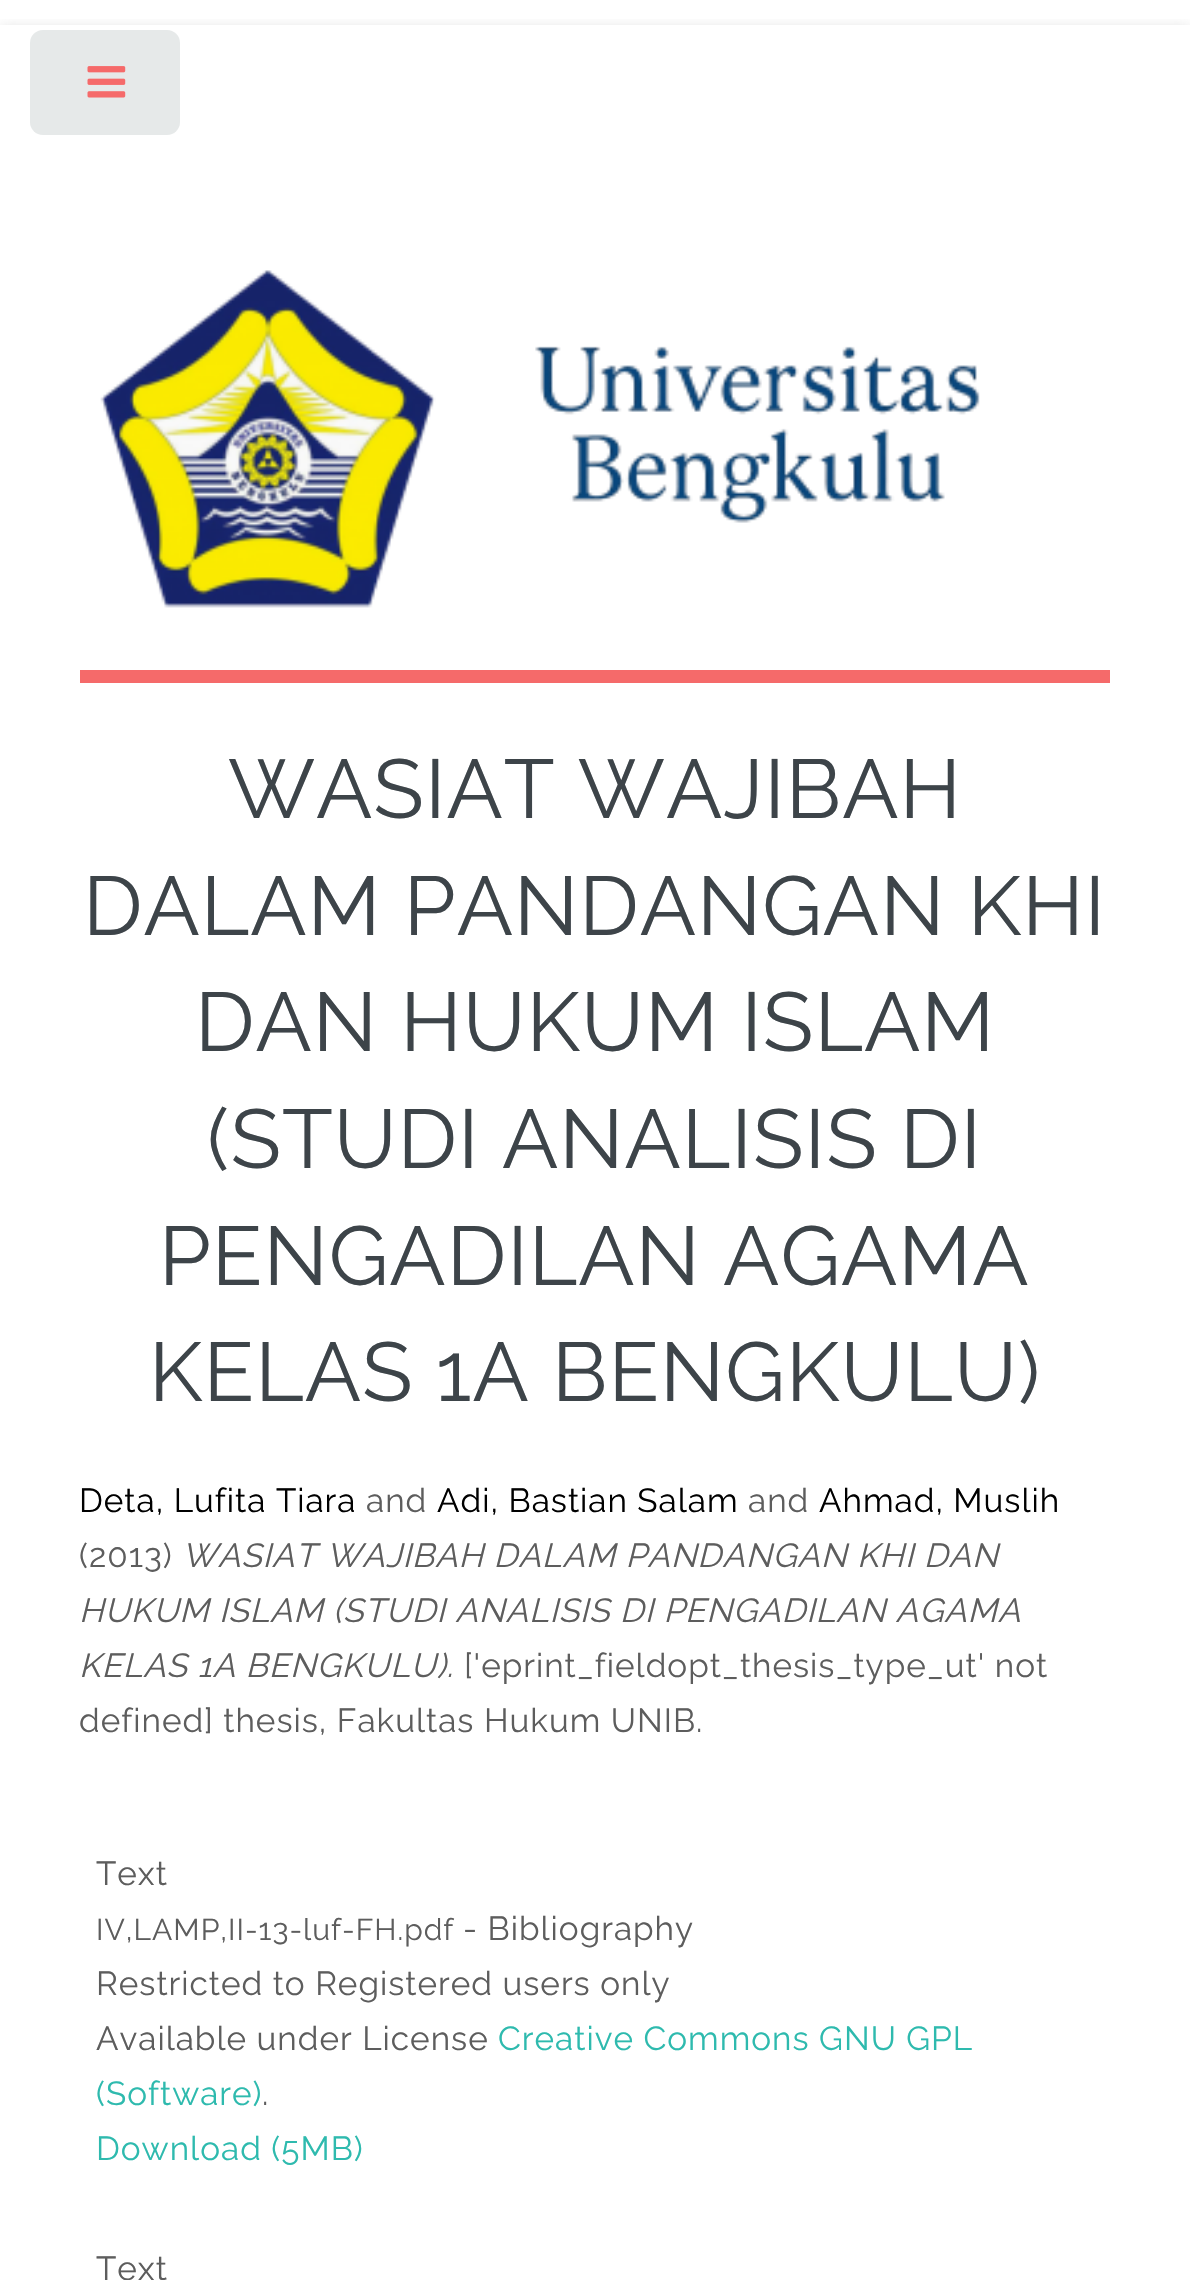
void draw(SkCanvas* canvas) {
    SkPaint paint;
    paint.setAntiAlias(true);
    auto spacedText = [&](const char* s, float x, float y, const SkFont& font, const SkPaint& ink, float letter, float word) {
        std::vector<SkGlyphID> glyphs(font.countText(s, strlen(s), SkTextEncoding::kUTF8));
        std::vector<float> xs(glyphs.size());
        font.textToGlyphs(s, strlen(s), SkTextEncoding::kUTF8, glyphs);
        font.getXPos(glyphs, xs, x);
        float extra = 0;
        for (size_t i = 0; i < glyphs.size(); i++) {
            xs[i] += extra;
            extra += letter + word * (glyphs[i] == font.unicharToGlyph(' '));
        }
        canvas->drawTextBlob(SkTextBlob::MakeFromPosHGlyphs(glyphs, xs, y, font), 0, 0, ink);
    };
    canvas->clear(0xFFFFFFFF);
    canvas->save();
    canvas->clipRect(SkRect::MakeXYWH(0, 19, 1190, 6));
    paint.setColor(0x4D646464);
    paint.setMaskFilter(SkMaskFilter::MakeBlur(kNormal_SkBlurStyle, 7.5f));
    canvas->drawRect(SkRect::MakeXYWH(0, 30, 1190, 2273), paint);
    paint.setMaskFilter(nullptr);
    canvas->restore();
    paint.setColor(0xFFE6E9E9);
    canvas->drawRoundRect(SkRect::MakeXYWH(30, 30, 150, 105), 13, 13, paint);
    canvas->drawImageRect(SkImages::DeferredFromEncodedData(SkData::MakeFromFileName("img1.png")), SkRect::MakeXYWH(87, 66, 39, 32), SkSamplingOptions());
    paint.setColor(0xFFF56A6A);
    canvas->drawRect(SkRect::MakeXYWH(80, 670, 1030, 13), paint);
    canvas->drawImageRect(SkImages::DeferredFromEncodedData(SkData::MakeFromFileName("img2.png")), SkRect::MakeXYWH(100, 270, 880, 338), SkSamplingOptions());
    SkFont font1(fontMgr->matchFamilyStyle("Raleway", SkFontStyle::Normal()), 83.25f);
    font1.setSubpixel(true);
    paint.setColor(0xFF3D4449);
    spacedText("WASIAT WAJIBAH", 228, 818, font1, paint, 1, 0);
    spacedText("DALAM PANDANGAN KHI", 83, 935, font1, paint, 1, 0);
    spacedText("DAN HUKUM ISLAM", 195, 1051, font1, paint, 1, 0);
    spacedText("(STUDI ANALISIS DI", 207, 1168, font1, paint, 1, 0);
    spacedText("PENGADILAN AGAMA", 159, 1285, font1, paint, 1, 0);
    spacedText("KELAS 1A BENGKULU)", 149, 1401, font1, paint, 1, 0);
    SkFont font2(fontMgr->matchFamilyStyle("Raleway", SkFontStyle::Normal()), 33.3f);
    font2.setSubpixel(true);
    paint.setColor(0xFF000000);
    spacedText("Deta, Lufita Tiara", 79, 1512, font2, paint, 1, 0);
    paint.setColor(0xFF5D5D5D);
    spacedText("and", 366, 1512, font2, paint, 1, 0);
    paint.setColor(0xFF000000);
    spacedText("Adi, Bastian Salam", 437, 1512, font2, paint, 1, 0);
    paint.setColor(0xFF5D5D5D);
    spacedText("and", 748, 1512, font2, paint, 1, 0);
    paint.setColor(0xFF000000);
    spacedText("Ahmad, Muslih", 819, 1512, font2, paint, 1, 0);
    paint.setColor(0xFF5D5D5D);
    spacedText("(2013)", 79, 1567, font2, paint, 1, 0);
    SkFont font3(fontMgr->matchFamilyStyle("Raleway", SkFontStyle::Italic()), 33.3f);
    font3.setSubpixel(true);
    spacedText("WASIAT WAJIBAH DALAM PANDANGAN KHI DAN", 182, 1567, font3, paint, 1, 0);
    spacedText("HUKUM ISLAM (STUDI ANALISIS DI PENGADILAN AGAMA", 79, 1622, font3, paint, 1, 0);
    spacedText("KELAS 1A BENGKULU).", 79, 1677, font3, paint, 1, 0);
    spacedText("['eprint_fieldopt_thesis_type_ut' not", 464, 1677, font2, paint, 1, 0);
    spacedText("defined] thesis, Fakultas Hukum UNIB.", 79, 1732, font2, paint, 1, 0);
    spacedText("Text", 96, 1885, font2, paint, 1, 0);
    SkFont font4(fontMgr->matchFamilyStyle("Raleway", SkFontStyle::Normal()), 30);
    font4.setSubpixel(true);
    spacedText("IV,LAMP,II-13-luf-FH.pdf", 96, 1940, font4, paint, 1, 0);
    spacedText("- Bibliography", 463, 1940, font2, paint, 1, 0);
    spacedText("Restricted to Registered users only", 96, 1995, font2, paint, 1, 0);
    spacedText("Available under License", 96, 2050, font2, paint, 1, 0);
    paint.setColor(0xFF2EBAAE);
    spacedText("Creative Commons GNU GPL", 498, 2050, font2, paint, 1, 0);
    spacedText("(Software)", 96, 2105, font2, paint, 1, 0);
    paint.setColor(0xFF5D5D5D);
    spacedText(".", 262, 2105, font2, paint, 1, 0);
    paint.setColor(0xFF2EBAAE);
    spacedText("Download (5MB)", 96, 2160, font2, paint, 1, 0);
    paint.setColor(0xFF5D5D5D);
    spacedText("Text", 96, 2280, font2, paint, 1, 0);
}
